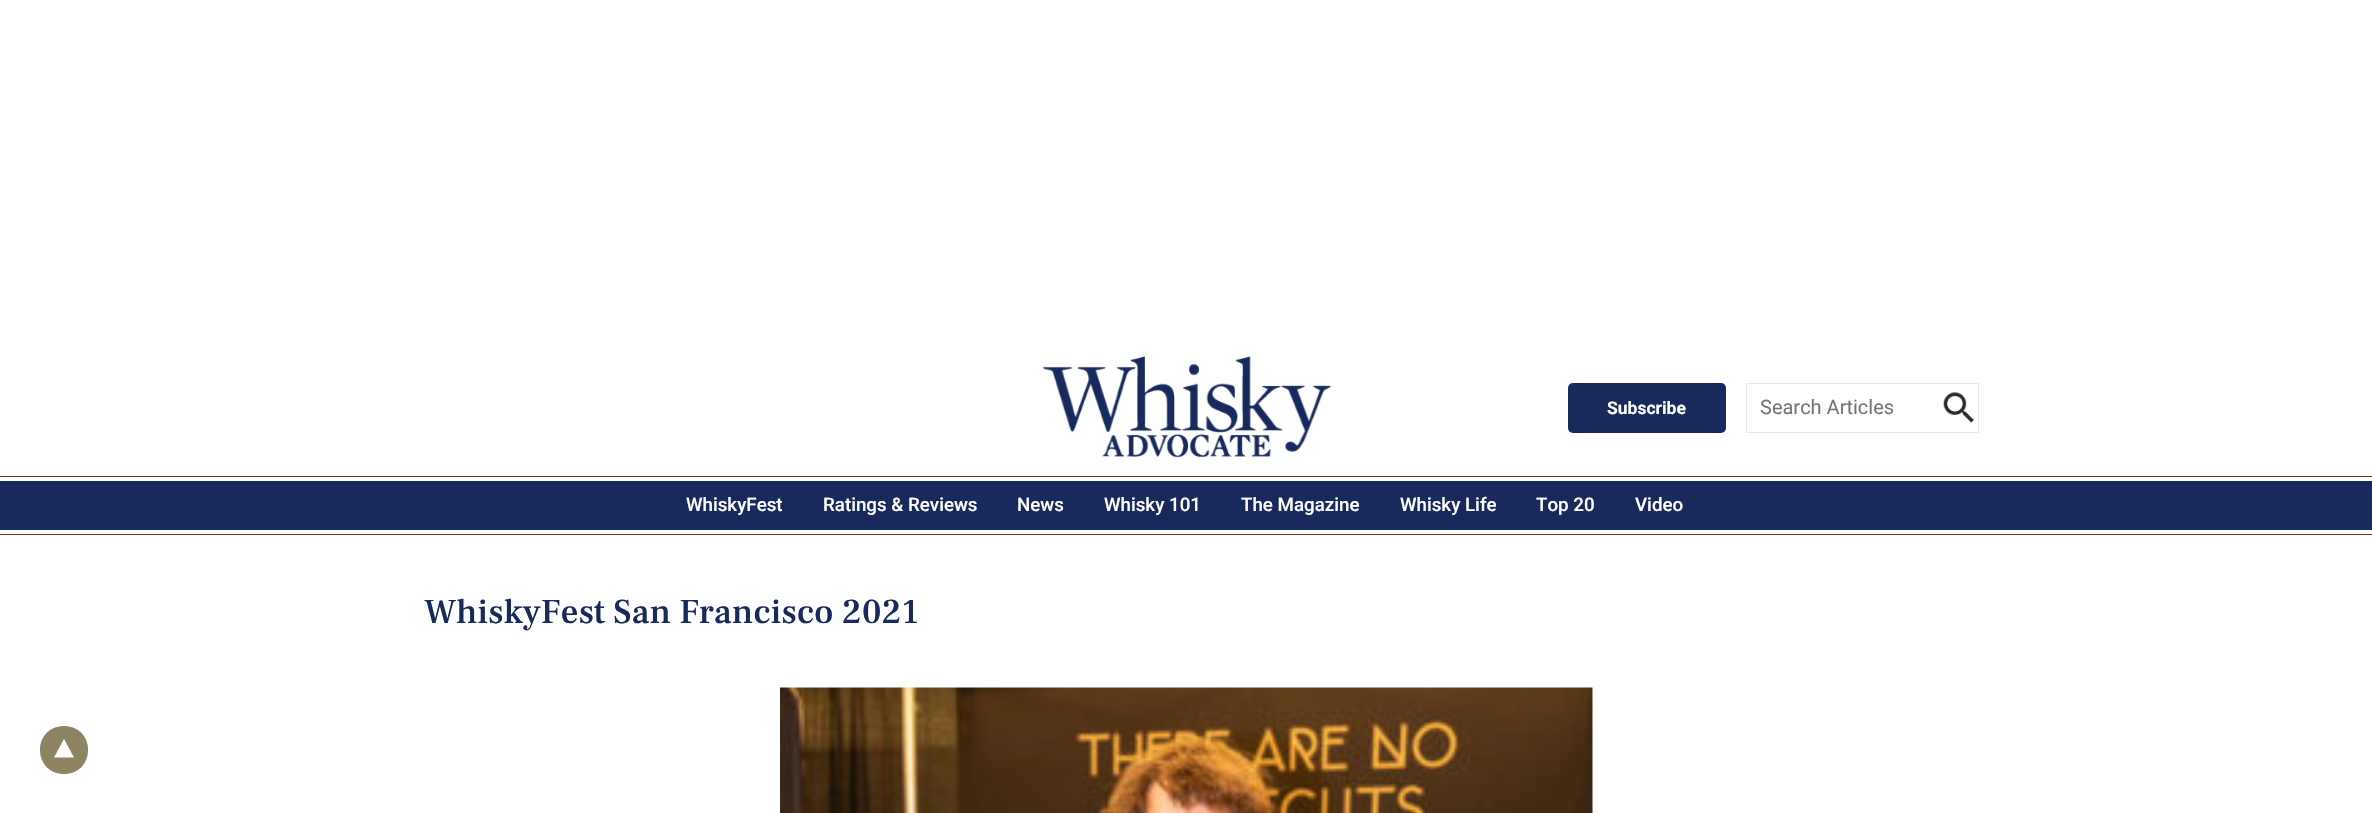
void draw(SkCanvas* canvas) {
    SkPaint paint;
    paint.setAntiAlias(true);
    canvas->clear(0xFFFFFFFF);
    canvas->drawImageRect(SkImages::DeferredFromEncodedData(SkData::MakeFromFileName("img1.png")), SkRect::MakeXYWH(1042, 356, 290, 102), SkSamplingOptions());
    paint.setColor(0xFF182A5C);
    canvas->drawRoundRect(SkRect::MakeXYWH(1568, 383, 158, 50), 5, 5, paint);
    SkFont font1(fontMgr->matchFamilyStyle("Roboto", SkFontStyle::Bold()), 17.5f);
    font1.setSubpixel(true);
    paint.setColor(0xFFFFFFFF);
    canvas->drawString("Subscribe", 1607, 414, font1, paint);
    paint.setStyle(SkPaint::kStroke_Style);
    paint.setStrokeWidth(1);
    paint.setColor(0xFFE8E8E8);
    canvas->drawRect(SkRect::MakeXYWH(1746.5f, 383.5f, 232, 49), paint);
    SkFont font2(fontMgr->matchFamilyStyle("Roboto", SkFontStyle::Normal()), 20);
    font2.setSubpixel(true);
    paint.setStyle(SkPaint::kFill_Style);
    paint.setColor(0xFF757575);
    canvas->drawString("Search Articles", 1760, 414, font2, paint);
    canvas->drawImageRect(SkImages::DeferredFromEncodedData(SkData::MakeFromFileName("img2.png")), SkRect::MakeXYWH(1943, 392, 31, 31), SkSamplingOptions());
    paint.setColor(0xFF733702);
    canvas->drawRect(SkRect::MakeXYWH(0, 476, 2372, 1), paint);
    canvas->drawRect(SkRect::MakeXYWH(0, 534, 2372, 1), paint);
    paint.setColor(0xFF182A5C);
    canvas->drawRect(SkRect::MakeXYWH(0, 481, 2372, 49), paint);
    SkFont font3(fontMgr->matchFamilyStyle("Roboto", SkFontStyle(500, SkFontStyle::kNormal_Width, SkFontStyle::kUpright_Slant)), 18.75f);
    font3.setSubpixel(true);
    paint.setColor(0xFFFFFFFF);
    canvas->drawString("WhiskyFest", 686, 511, font3, paint);
    canvas->drawString("Ratings & Reviews", 823, 511, font3, paint);
    canvas->drawString("News", 1017, 511, font3, paint);
    canvas->drawString("Whisky 101", 1104, 511, font3, paint);
    canvas->drawString("The Magazine", 1241, 511, font3, paint);
    canvas->drawString("Whisky Life", 1400, 511, font3, paint);
    canvas->drawString("Top 20", 1536, 511, font3, paint);
    canvas->drawString("Video", 1635, 511, font3, paint);
    SkFont font4(fontMgr->matchFamilyStyle("Frank Ruhl Libre", SkFontStyle(500, SkFontStyle::kNormal_Width, SkFontStyle::kUpright_Slant)), 35);
    font4.setSubpixel(true);
    paint.setColor(0xFF182A5C);
    canvas->drawString("WhiskyFest San Francisco 2021", 424, 623, font4, paint);
    canvas->drawImageRect(SkImages::DeferredFromEncodedData(SkData::MakeFromFileName("img3.png")), SkRect::MakeXYWH(780, 687, 813, 126), SkSamplingOptions());
    paint.setColor(0xFF8D8562);
    canvas->drawRoundRect(SkRect::MakeXYWH(40, 726, 48, 48), 23, 23, paint);
    paint.setColor(0xFFFFFFFF);
    canvas->drawPath(SkPathBuilder().moveTo(74, 757.5f).lineTo(54, 757.5f).lineTo(64, 739).close().detach(), paint);
}
